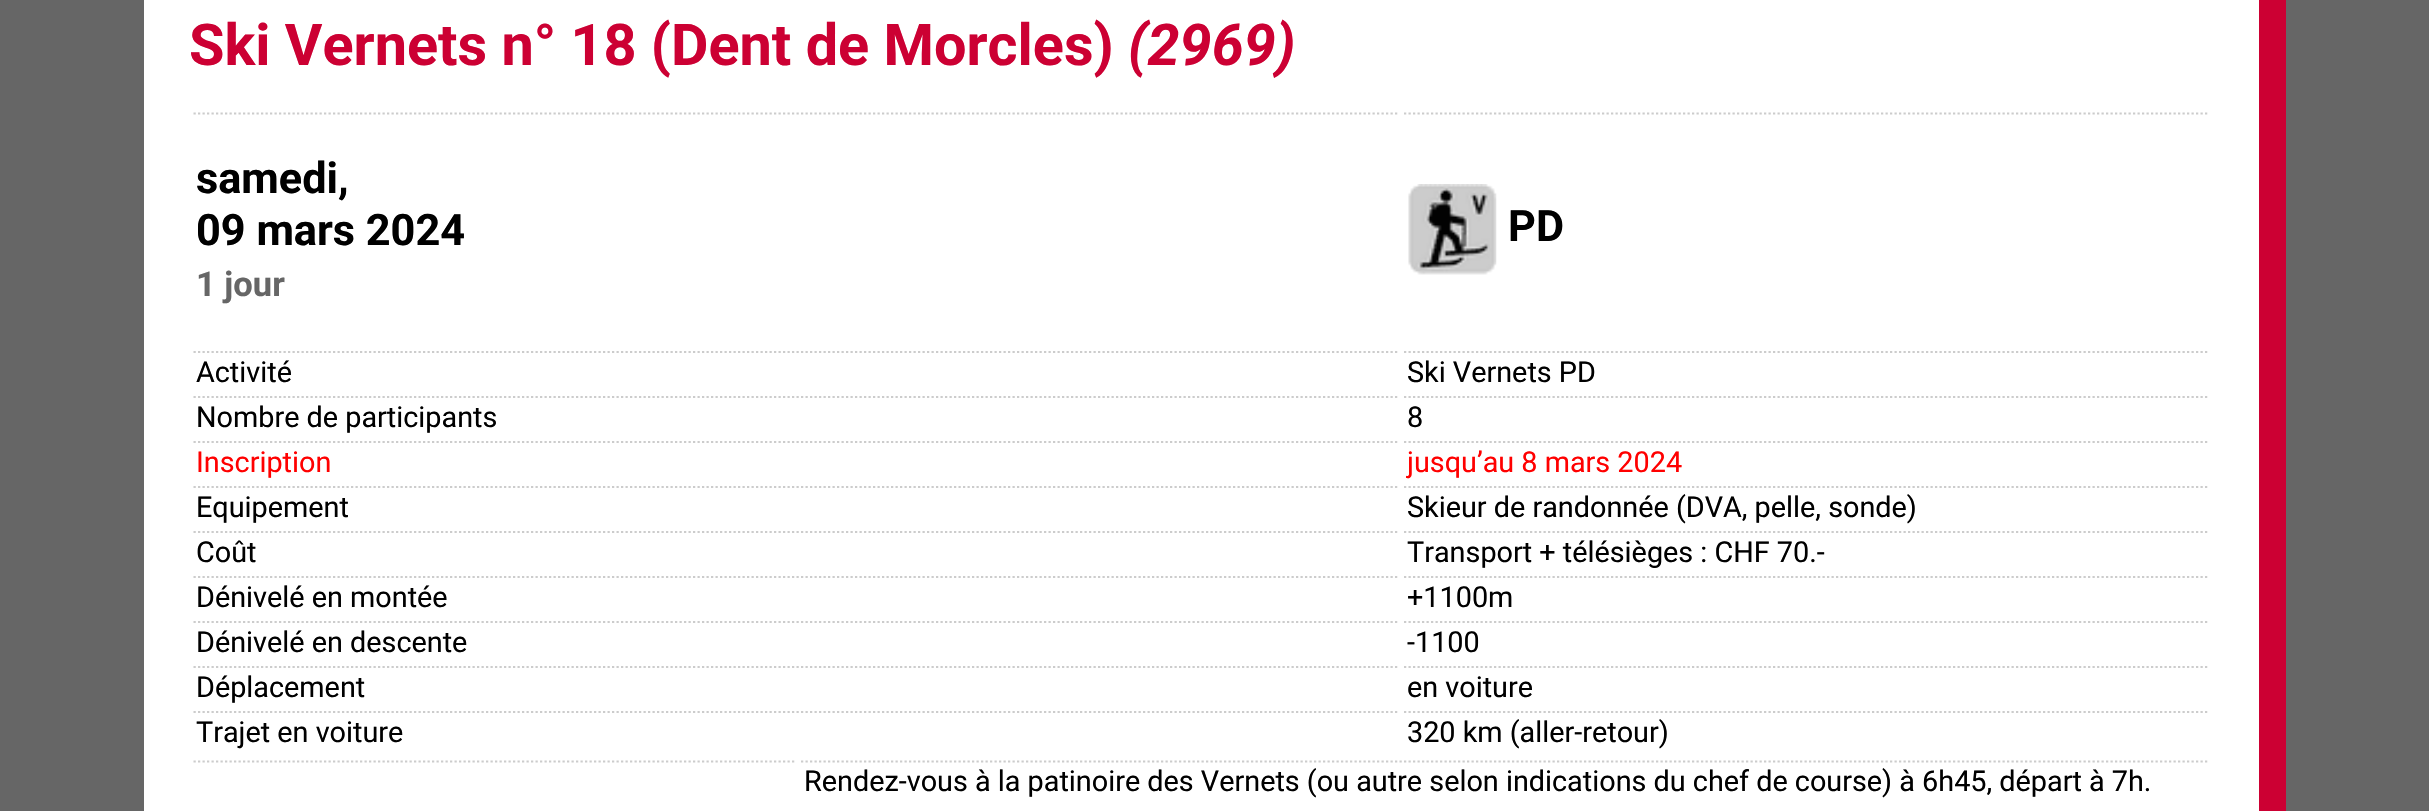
void draw(SkCanvas* canvas) {
    SkPaint paint;
    paint.setAntiAlias(true);
    canvas->clear(0xFF666666);
    paint.setColor(0xFFFFFFFF);
    canvas->drawRect(SkRect::MakeXYWH(144, 0, 2115, 811), paint);
    paint.setColor(0xFFCC0033);
    canvas->drawRect(SkRect::MakeXYWH(2259, 0, 27, 811), paint);
    SkFont font1(fontMgr->matchFamilyStyle("Roboto", SkFontStyle::Bold()), 57.6f);
    font1.setSubpixel(true);
    canvas->drawString("Ski Vernets n° 18 (Dent de Morcles)", 189, 65, font1, paint);
    SkFont font2(fontMgr->matchFamilyStyle("Roboto", SkFontStyle::BoldItalic()), 57.6f);
    font2.setSubpixel(true);
    canvas->drawString("(2969)", 1128, 65, font2, paint);
    paint.setStyle(SkPaint::kStroke_Style);
    paint.setStrokeWidth(2.2f);
    paint.setColor(0xFFCCCCCC);
    paint.setPathEffect(SkDashPathEffect::Make({{2.25f, 2.25f}}, 0));
    canvas->drawPath(SkPathBuilder().moveTo(193.5f, 113.5f).lineTo(1399.5f, 113.5f).detach(), paint);
    paint.setPathEffect(nullptr);
    SkFont font3(fontMgr->matchFamilyStyle("Roboto", SkFontStyle::Bold()), 43.25f);
    font3.setSubpixel(true);
    paint.setStyle(SkPaint::kFill_Style);
    paint.setColor(0xFF000000);
    canvas->drawString("samedi,", 196, 193, font3, paint);
    canvas->drawString("09 mars 2024", 196, 245, font3, paint);
    SkFont font4(fontMgr->matchFamilyStyle("Roboto", SkFontStyle::Bold()), 34.5f);
    font4.setSubpixel(true);
    paint.setColor(0xFF666666);
    canvas->drawString("1 jour", 196, 296, font4, paint);
    paint.setStyle(SkPaint::kStroke_Style);
    paint.setColor(0xFFCCCCCC);
    paint.setPathEffect(SkDashPathEffect::Make({{2.25f, 2.25f}}, 0));
    canvas->drawPath(SkPathBuilder().moveTo(1404, 113.5f).lineTo(2209.5f, 113.5f).detach(), paint);
    paint.setPathEffect(nullptr);
    canvas->drawImageRect(SkImages::DeferredFromEncodedData(SkData::MakeFromFileName("img1.png")), SkRect::MakeXYWH(1408, 184, 89, 91), SkSamplingOptions());
    paint.setStyle(SkPaint::kFill_Style);
    paint.setColor(0xFF000000);
    canvas->drawString("PD", 1508, 241, font3, paint);
    paint.setStyle(SkPaint::kStroke_Style);
    paint.setColor(0xFFCCCCCC);
    paint.setPathEffect(SkDashPathEffect::Make({{2.25f, 2.25f}}, 0));
    canvas->drawPath(SkPathBuilder().moveTo(193.5f, 352).lineTo(1399.5f, 352).detach(), paint);
    paint.setPathEffect(nullptr);
    SkFont font5(fontMgr->matchFamilyStyle("Roboto", SkFontStyle::Normal()), 28.8f);
    font5.setSubpixel(true);
    paint.setStyle(SkPaint::kFill_Style);
    paint.setColor(0xFF000000);
    canvas->drawString("Activité", 196, 382, font5, paint);
    paint.setStyle(SkPaint::kStroke_Style);
    paint.setColor(0xFFCCCCCC);
    paint.setPathEffect(SkDashPathEffect::Make({{2.25f, 2.25f}}, 0));
    canvas->drawPath(SkPathBuilder().moveTo(1404, 352).lineTo(2209.5f, 352).detach(), paint);
    paint.setPathEffect(nullptr);
    paint.setStyle(SkPaint::kFill_Style);
    paint.setColor(0xFF000000);
    canvas->drawString("Ski Vernets PD", 1407, 382, font5, paint);
    paint.setStyle(SkPaint::kStroke_Style);
    paint.setColor(0xFFCCCCCC);
    paint.setPathEffect(SkDashPathEffect::Make({{2.25f, 2.25f}}, 0));
    canvas->drawPath(SkPathBuilder().moveTo(193.5f, 397).lineTo(1399.5f, 397).detach(), paint);
    paint.setPathEffect(nullptr);
    paint.setStyle(SkPaint::kFill_Style);
    paint.setColor(0xFF000000);
    canvas->drawString("Nombre de participants", 196, 427, font5, paint);
    paint.setStyle(SkPaint::kStroke_Style);
    paint.setColor(0xFFCCCCCC);
    paint.setPathEffect(SkDashPathEffect::Make({{2.25f, 2.25f}}, 0));
    canvas->drawPath(SkPathBuilder().moveTo(1404, 397).lineTo(2209.5f, 397).detach(), paint);
    paint.setPathEffect(nullptr);
    paint.setStyle(SkPaint::kFill_Style);
    paint.setColor(0xFF000000);
    canvas->drawString("8", 1407, 427, font5, paint);
    paint.setStyle(SkPaint::kStroke_Style);
    paint.setColor(0xFFCCCCCC);
    paint.setPathEffect(SkDashPathEffect::Make({{2.25f, 2.25f}}, 0));
    canvas->drawPath(SkPathBuilder().moveTo(193.5f, 442).lineTo(1399.5f, 442).detach(), paint);
    paint.setPathEffect(nullptr);
    paint.setStyle(SkPaint::kFill_Style);
    paint.setColor(0xFFFF0000);
    canvas->drawString("Inscription", 196, 472, font5, paint);
    paint.setStyle(SkPaint::kStroke_Style);
    paint.setColor(0xFFCCCCCC);
    paint.setPathEffect(SkDashPathEffect::Make({{2.25f, 2.25f}}, 0));
    canvas->drawPath(SkPathBuilder().moveTo(1404, 442).lineTo(2209.5f, 442).detach(), paint);
    paint.setPathEffect(nullptr);
    paint.setStyle(SkPaint::kFill_Style);
    paint.setColor(0xFFFF0000);
    canvas->drawString("jusquʼau 8 mars 2024", 1407, 472, font5, paint);
    paint.setStyle(SkPaint::kStroke_Style);
    paint.setColor(0xFFCCCCCC);
    paint.setPathEffect(SkDashPathEffect::Make({{2.25f, 2.25f}}, 0));
    canvas->drawPath(SkPathBuilder().moveTo(193.5f, 487).lineTo(1399.5f, 487).detach(), paint);
    paint.setPathEffect(nullptr);
    paint.setStyle(SkPaint::kFill_Style);
    paint.setColor(0xFF000000);
    canvas->drawString("Equipement", 196, 517, font5, paint);
    paint.setStyle(SkPaint::kStroke_Style);
    paint.setColor(0xFFCCCCCC);
    paint.setPathEffect(SkDashPathEffect::Make({{2.25f, 2.25f}}, 0));
    canvas->drawPath(SkPathBuilder().moveTo(1404, 487).lineTo(2209.5f, 487).detach(), paint);
    paint.setPathEffect(nullptr);
    paint.setStyle(SkPaint::kFill_Style);
    paint.setColor(0xFF000000);
    canvas->drawString("Skieur de randonnée (DVA, pelle, sonde)", 1407, 517, font5, paint);
    paint.setStyle(SkPaint::kStroke_Style);
    paint.setColor(0xFFCCCCCC);
    paint.setPathEffect(SkDashPathEffect::Make({{2.25f, 2.25f}}, 0));
    canvas->drawPath(SkPathBuilder().moveTo(193.5f, 532).lineTo(1399.5f, 532).detach(), paint);
    paint.setPathEffect(nullptr);
    paint.setStyle(SkPaint::kFill_Style);
    paint.setColor(0xFF000000);
    canvas->drawString("Coût", 196, 562, font5, paint);
    paint.setStyle(SkPaint::kStroke_Style);
    paint.setColor(0xFFCCCCCC);
    paint.setPathEffect(SkDashPathEffect::Make({{2.25f, 2.25f}}, 0));
    canvas->drawPath(SkPathBuilder().moveTo(1404, 532).lineTo(2209.5f, 532).detach(), paint);
    paint.setPathEffect(nullptr);
    paint.setStyle(SkPaint::kFill_Style);
    paint.setColor(0xFF000000);
    canvas->drawString("Transport + télésièges : CHF 70.-", 1407, 562, font5, paint);
    paint.setStyle(SkPaint::kStroke_Style);
    paint.setColor(0xFFCCCCCC);
    paint.setPathEffect(SkDashPathEffect::Make({{2.25f, 2.25f}}, 0));
    canvas->drawPath(SkPathBuilder().moveTo(193.5f, 577).lineTo(1399.5f, 577).detach(), paint);
    paint.setPathEffect(nullptr);
    paint.setStyle(SkPaint::kFill_Style);
    paint.setColor(0xFF000000);
    canvas->drawString("Dénivelé en montée", 196, 607, font5, paint);
    paint.setStyle(SkPaint::kStroke_Style);
    paint.setColor(0xFFCCCCCC);
    paint.setPathEffect(SkDashPathEffect::Make({{2.25f, 2.25f}}, 0));
    canvas->drawPath(SkPathBuilder().moveTo(1404, 577).lineTo(2209.5f, 577).detach(), paint);
    paint.setPathEffect(nullptr);
    paint.setStyle(SkPaint::kFill_Style);
    paint.setColor(0xFF000000);
    canvas->drawString("+1100m", 1407, 607, font5, paint);
    paint.setStyle(SkPaint::kStroke_Style);
    paint.setColor(0xFFCCCCCC);
    paint.setPathEffect(SkDashPathEffect::Make({{2.25f, 2.25f}}, 0));
    canvas->drawPath(SkPathBuilder().moveTo(193.5f, 622).lineTo(1399.5f, 622).detach(), paint);
    paint.setPathEffect(nullptr);
    paint.setStyle(SkPaint::kFill_Style);
    paint.setColor(0xFF000000);
    canvas->drawString("Dénivelé en descente", 196, 652, font5, paint);
    paint.setStyle(SkPaint::kStroke_Style);
    paint.setColor(0xFFCCCCCC);
    paint.setPathEffect(SkDashPathEffect::Make({{2.25f, 2.25f}}, 0));
    canvas->drawPath(SkPathBuilder().moveTo(1404, 622).lineTo(2209.5f, 622).detach(), paint);
    paint.setPathEffect(nullptr);
    paint.setStyle(SkPaint::kFill_Style);
    paint.setColor(0xFF000000);
    canvas->drawString("-1100", 1407, 652, font5, paint);
    paint.setStyle(SkPaint::kStroke_Style);
    paint.setColor(0xFFCCCCCC);
    paint.setPathEffect(SkDashPathEffect::Make({{2.25f, 2.25f}}, 0));
    canvas->drawPath(SkPathBuilder().moveTo(193.5f, 667).lineTo(1399.5f, 667).detach(), paint);
    paint.setPathEffect(nullptr);
    paint.setStyle(SkPaint::kFill_Style);
    paint.setColor(0xFF000000);
    canvas->drawString("Déplacement", 196, 697, font5, paint);
    paint.setStyle(SkPaint::kStroke_Style);
    paint.setColor(0xFFCCCCCC);
    paint.setPathEffect(SkDashPathEffect::Make({{2.25f, 2.25f}}, 0));
    canvas->drawPath(SkPathBuilder().moveTo(1404, 667).lineTo(2209.5f, 667).detach(), paint);
    paint.setPathEffect(nullptr);
    paint.setStyle(SkPaint::kFill_Style);
    paint.setColor(0xFF000000);
    canvas->drawString("en voiture", 1407, 697, font5, paint);
    paint.setStyle(SkPaint::kStroke_Style);
    paint.setColor(0xFFCCCCCC);
    paint.setPathEffect(SkDashPathEffect::Make({{2.25f, 2.25f}}, 0));
    canvas->drawPath(SkPathBuilder().moveTo(193.5f, 712).lineTo(1399.5f, 712).detach(), paint);
    paint.setPathEffect(nullptr);
    paint.setStyle(SkPaint::kFill_Style);
    paint.setColor(0xFF000000);
    canvas->drawString("Trajet en voiture", 196, 742, font5, paint);
    paint.setStyle(SkPaint::kStroke_Style);
    paint.setColor(0xFFCCCCCC);
    paint.setPathEffect(SkDashPathEffect::Make({{2.25f, 2.25f}}, 0));
    canvas->drawPath(SkPathBuilder().moveTo(1404, 712).lineTo(2209.5f, 712).detach(), paint);
    paint.setPathEffect(nullptr);
    paint.setStyle(SkPaint::kFill_Style);
    paint.setColor(0xFF000000);
    canvas->drawString("320 km (aller-retour)", 1407, 742, font5, paint);
    paint.setStyle(SkPaint::kStroke_Style);
    paint.setColor(0xFFCCCCCC);
    paint.setPathEffect(SkDashPathEffect::Make({{2.25f, 2.25f}}, 0));
    canvas->drawPath(SkPathBuilder().moveTo(193.5f, 761.5f).lineTo(796.5f, 761.5f).detach(), paint);
    paint.setPathEffect(nullptr);
    paint.setPathEffect(SkDashPathEffect::Make({{2.25f, 2.25f}}, 0));
    canvas->drawPath(SkPathBuilder().moveTo(801, 761.5f).lineTo(2209.5f, 761.5f).detach(), paint);
    paint.setPathEffect(nullptr);
    paint.setStyle(SkPaint::kFill_Style);
    paint.setColor(0xFF000000);
    canvas->drawString("Rendez-vous à la patinoire des Vernets (ou autre selon indications du chef de course) à 6h45, départ à 7h.", 804, 791, font5, paint);
}
